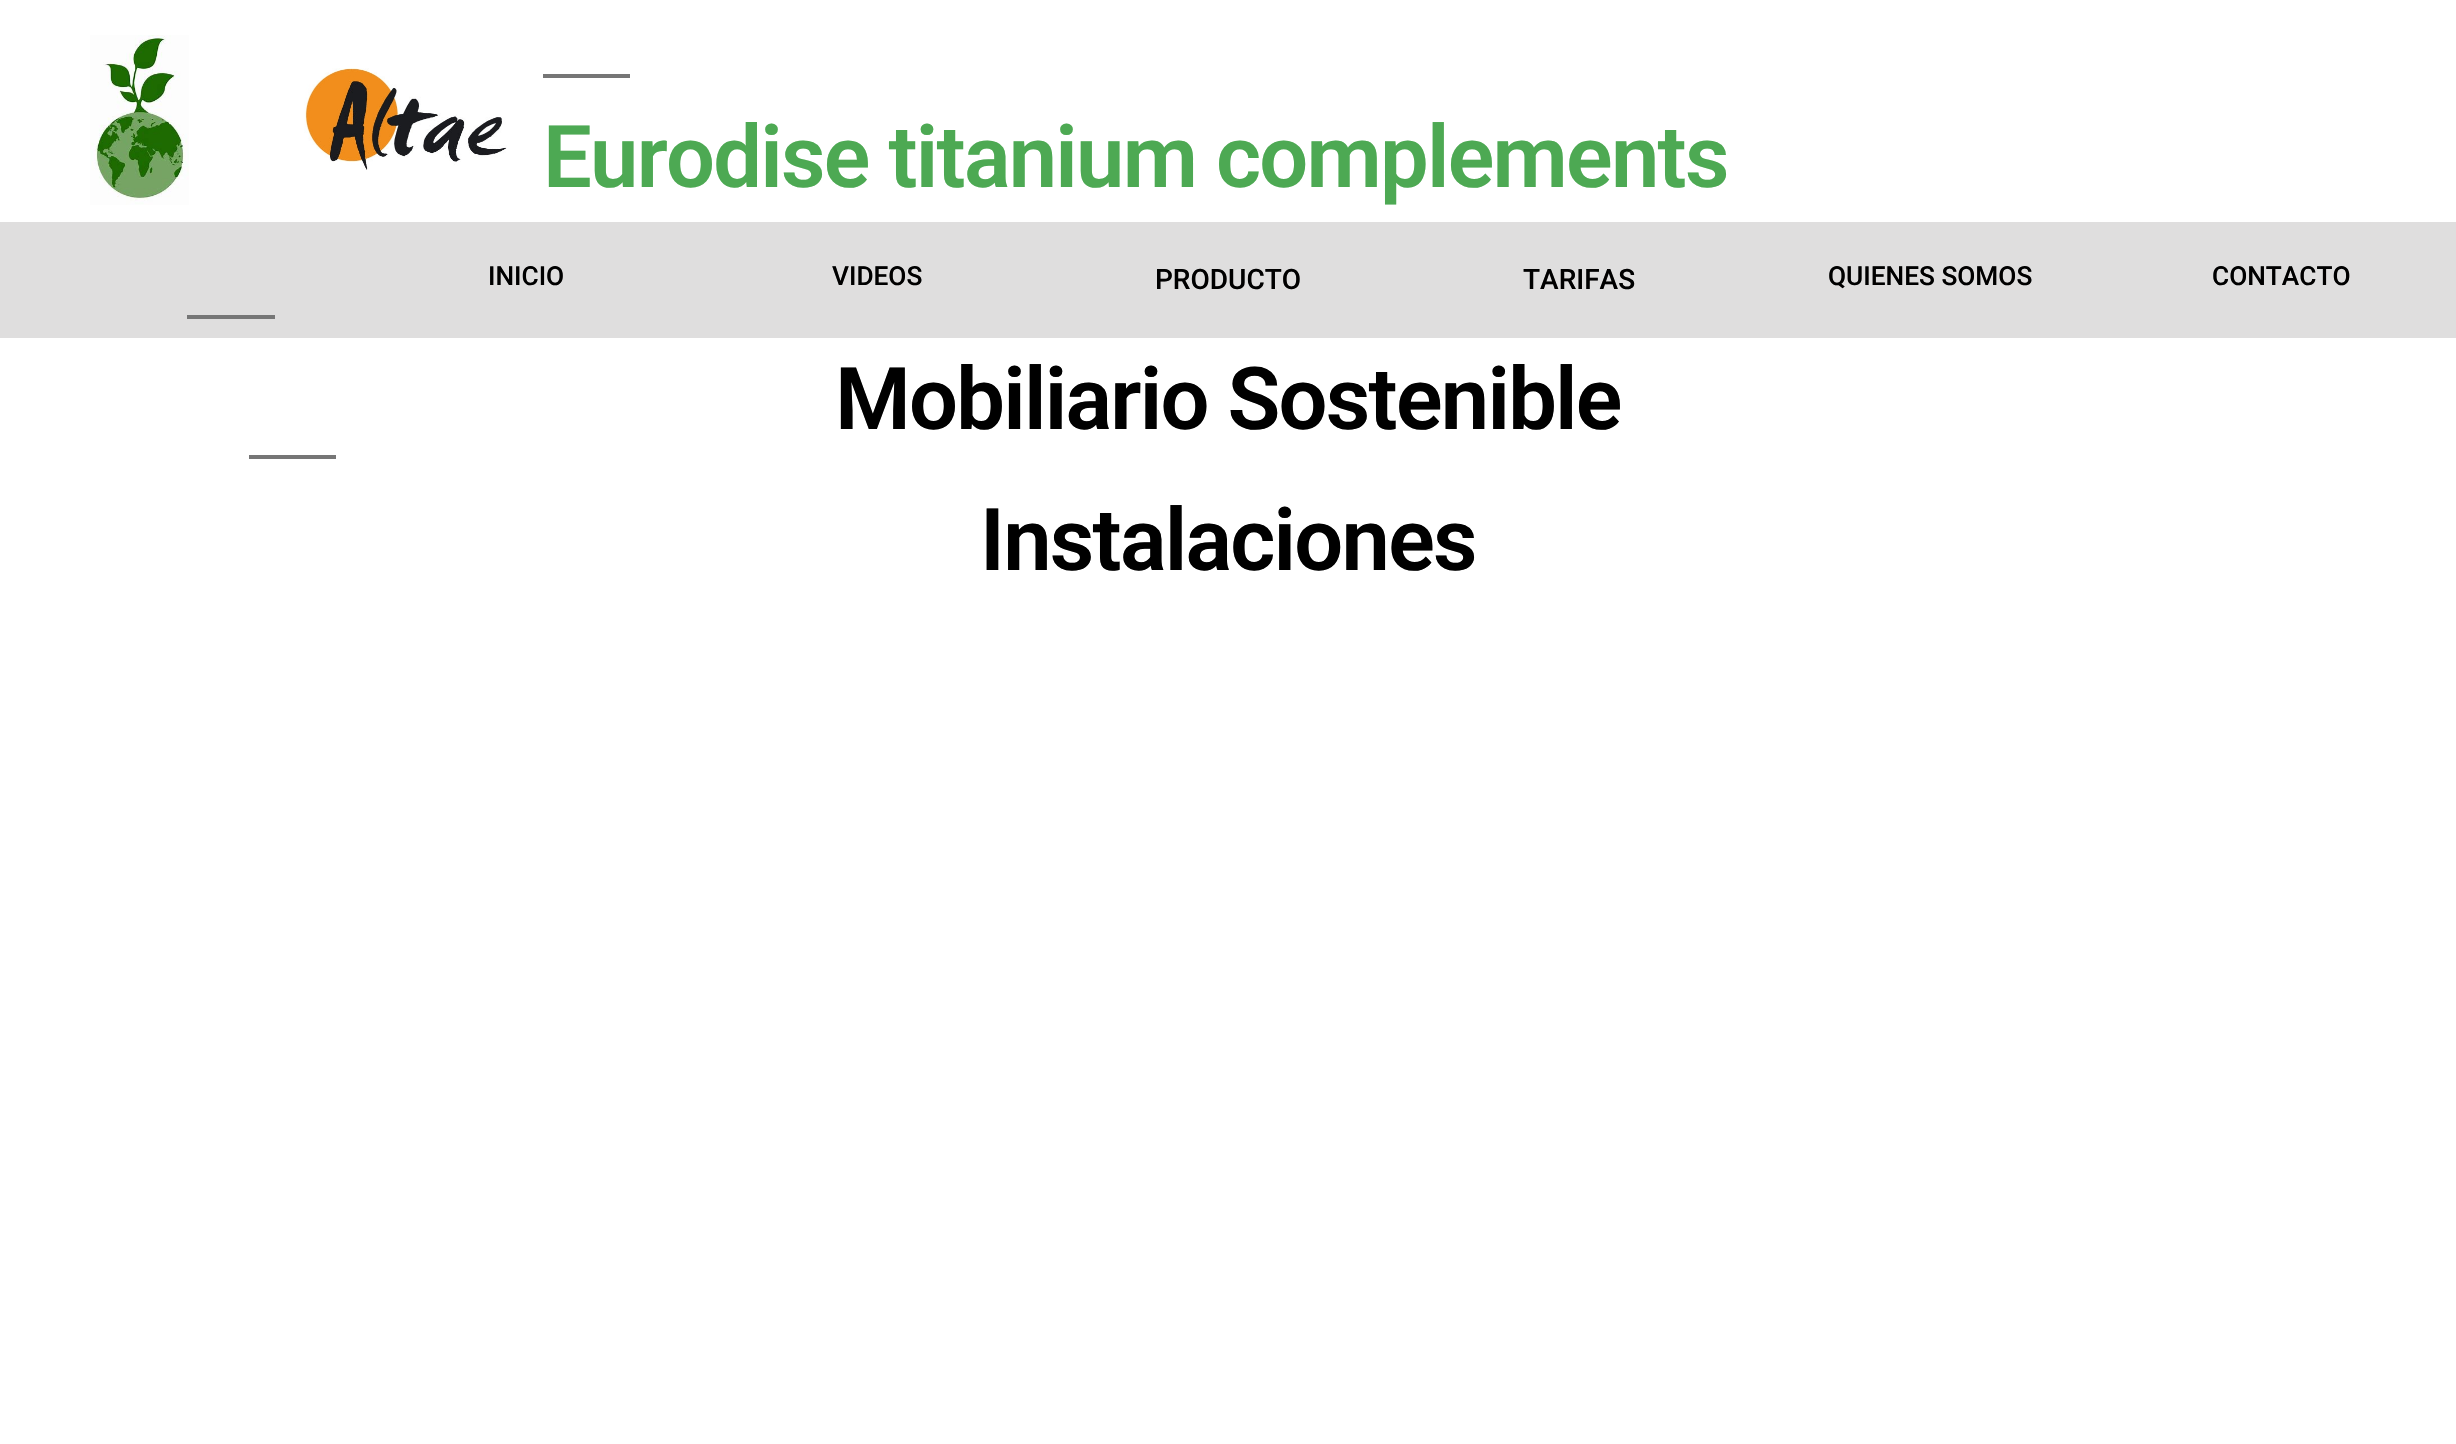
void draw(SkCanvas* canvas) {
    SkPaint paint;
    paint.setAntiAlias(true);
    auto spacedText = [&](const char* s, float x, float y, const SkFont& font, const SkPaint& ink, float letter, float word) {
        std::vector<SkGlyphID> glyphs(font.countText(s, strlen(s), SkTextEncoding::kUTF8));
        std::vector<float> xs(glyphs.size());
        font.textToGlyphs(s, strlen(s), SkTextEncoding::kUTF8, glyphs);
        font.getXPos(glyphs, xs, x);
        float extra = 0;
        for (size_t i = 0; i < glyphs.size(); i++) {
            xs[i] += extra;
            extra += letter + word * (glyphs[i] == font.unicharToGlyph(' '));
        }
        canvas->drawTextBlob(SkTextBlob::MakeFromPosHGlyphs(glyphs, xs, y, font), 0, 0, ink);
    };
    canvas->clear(0xFFFFFFFF);
    canvas->drawImageRect(SkImages::DeferredFromEncodedData(SkData::MakeFromFileName("img1.png")), SkRect::MakeXYWH(90, 35, 99, 170), SkSamplingOptions());
    canvas->drawImageRect(SkImages::DeferredFromEncodedData(SkData::MakeFromFileName("img2.png")), SkRect::MakeXYWH(304, 68, 203, 102), SkSamplingOptions());
    paint.setColor(0xFF767676);
    canvas->drawRect(SkRect::MakeXYWH(543, 74, 87, 4), paint);
    SkFont font1(fontMgr->matchFamilyStyle("Roboto", SkFontStyle(600, SkFontStyle::kNormal_Width, SkFontStyle::kUpright_Slant)), 86.6f);
    font1.setSubpixel(true);
    paint.setColor(0xFF4DA953);
    spacedText("Eurodise titanium complements", 543, 187, font1, paint, -1.75f, 0);
    paint.setColor(0xFFDFDEDE);
    canvas->drawRect(SkRect::MakeXYWH(0, 222, 2456, 116), paint);
    SkFont font2(fontMgr->matchFamilyStyle("Roboto", SkFontStyle(500, SkFontStyle::kNormal_Width, SkFontStyle::kUpright_Slant)), 26.25f);
    font2.setSubpixel(true);
    paint.setColor(0xFF000000);
    canvas->drawString("INICIO", 488, 285, font2, paint);
    canvas->drawString("VIDEOS", 832, 285, font2, paint);
    SkFont font3(fontMgr->matchFamilyStyle("Roboto", SkFontStyle(500, SkFontStyle::kNormal_Width, SkFontStyle::kUpright_Slant)), 28);
    font3.setSubpixel(true);
    canvas->drawString("PRODUCTO", 1155, 289, font3, paint);
    canvas->drawString("TARIFAS", 1523, 289, font3, paint);
    canvas->drawString("QUIENES SOMOS", 1828, 285, font2, paint);
    canvas->drawString("CONTACTO", 2212, 285, font2, paint);
    paint.setColor(0xFF767676);
    canvas->drawRect(SkRect::MakeXYWH(187, 315, 88, 4), paint);
    paint.setColor(0xFF000000);
    spacedText("Mobiliario Sostenible", 835, 429, font1, paint, -1.75f, 0);
    paint.setColor(0xFF767676);
    canvas->drawRect(SkRect::MakeXYWH(249, 455, 87, 4), paint);
    paint.setColor(0xFF000000);
    spacedText("Instalaciones", 980, 570, font1, paint, -1.75f, 0);
}
